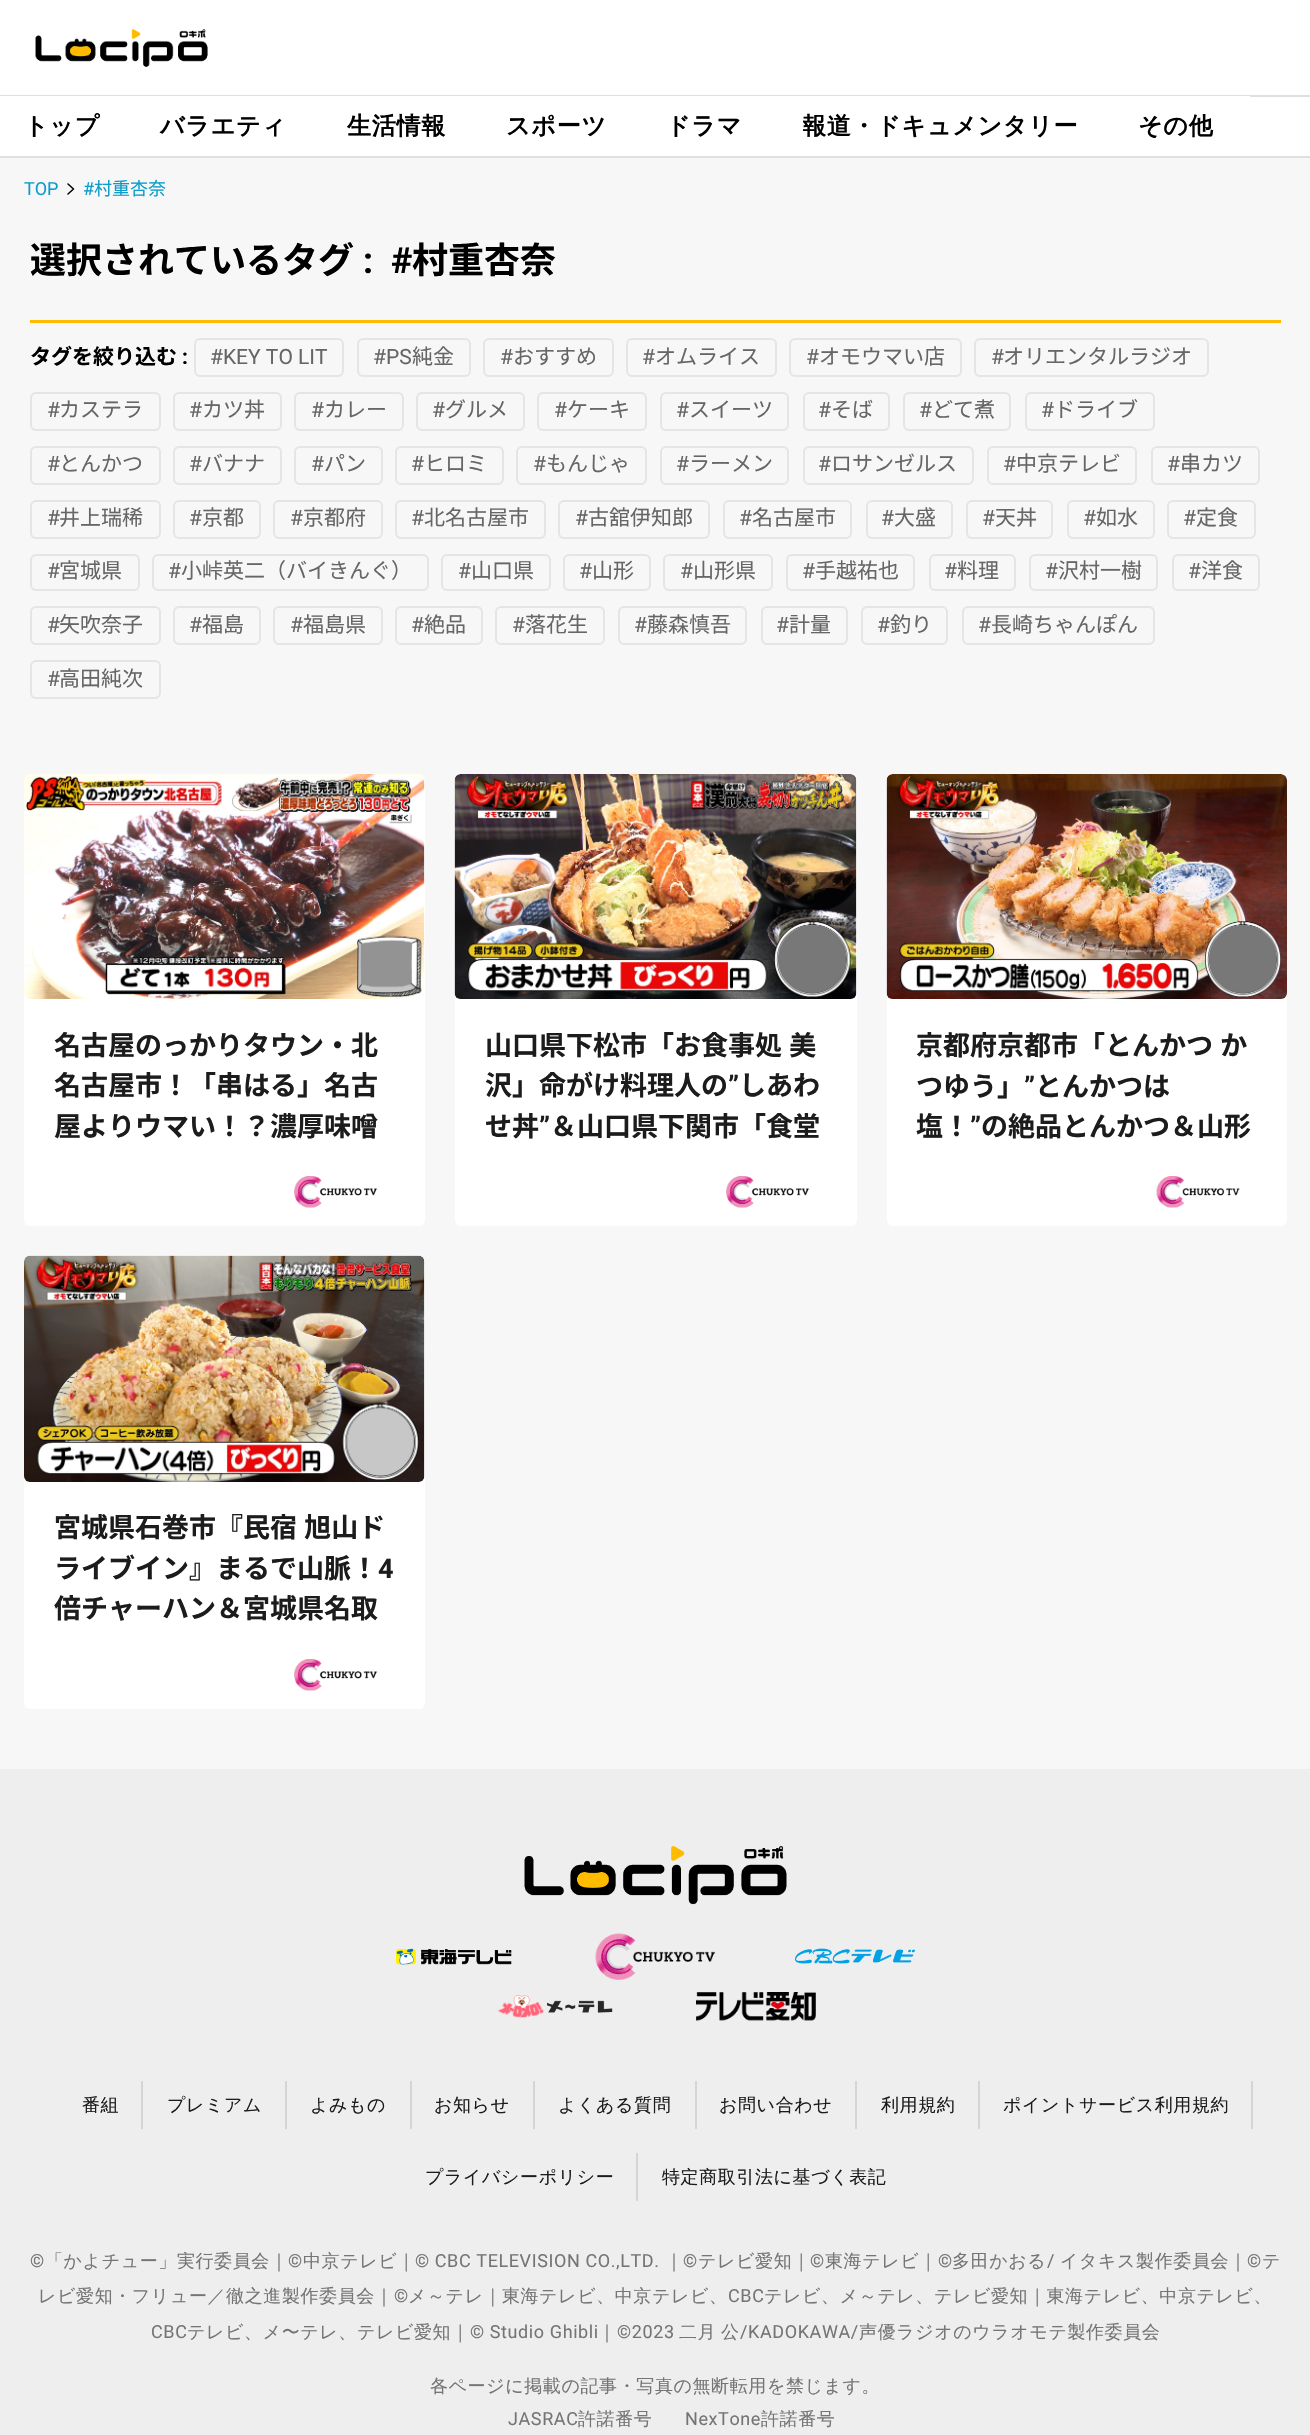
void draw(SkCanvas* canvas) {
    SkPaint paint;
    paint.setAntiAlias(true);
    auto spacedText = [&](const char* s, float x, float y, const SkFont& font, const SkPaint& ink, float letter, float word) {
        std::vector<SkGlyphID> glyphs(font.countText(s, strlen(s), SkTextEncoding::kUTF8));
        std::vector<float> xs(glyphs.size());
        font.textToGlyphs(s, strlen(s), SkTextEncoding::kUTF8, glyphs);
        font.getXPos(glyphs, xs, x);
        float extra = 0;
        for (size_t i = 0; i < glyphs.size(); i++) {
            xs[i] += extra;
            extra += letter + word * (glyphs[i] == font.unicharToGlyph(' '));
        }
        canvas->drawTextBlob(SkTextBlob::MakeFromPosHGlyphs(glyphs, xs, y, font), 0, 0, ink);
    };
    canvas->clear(0xFFF7F7F7);
    paint.setColor(0xFFFFFFFF);
    canvas->drawRect(SkRect::MakeXYWH(0, 0, 1310, 95), paint);
    canvas->drawImageRect(SkImages::DeferredFromEncodedData(SkData::MakeFromFileName("img1.png")), SkRect::MakeXYWH(35, 29, 173, 38), SkSamplingOptions());
    canvas->drawRect(SkRect::MakeXYWH(1250, 97, 60, 59), paint);
    paint.setColor(0xFFE0E0E0);
    canvas->drawRect(SkRect::MakeXYWH(0, 95, 1310, 2), paint);
    canvas->drawRect(SkRect::MakeXYWH(0, 156, 1310, 2), paint);
    paint.setColor(0xFFFFFFFF);
    canvas->drawRect(SkRect::MakeXYWH(0, 96, 1250, 60), paint);
    SkFont font1(fontMgr->matchFamilyStyle("WenQuanYi Zen Hei", SkFontStyle::Bold()), 24);
    font1.setSubpixel(true);
    paint.setColor(0xFF000000);
    spacedText("トップ", 24, 134, font1, paint, 0.75f, 0);
    spacedText("バラエティ", 160, 134, font1, paint, 0.75f, 0);
    spacedText("生活情報", 347, 134, font1, paint, 0.75f, 0);
    spacedText("スポーツ", 506, 134, font1, paint, 0.75f, 0);
    spacedText("ドラマ", 666, 134, font1, paint, 0.75f, 0);
    canvas->save();
    canvas->clipRect(SkRect::MakeXYWH(803, 108, 276, 36));
    spacedText("報道・ドキュメンタリー", 802, 134, font1, paint, 0.75f, 0);
    canvas->restore();
    spacedText("その他", 1138, 134, font1, paint, 0.75f, 0);
    SkFont font2(fontMgr->matchFamilyStyle("Roboto", SkFontStyle::Normal()), 18);
    font2.setSubpixel(true);
    paint.setColor(0xFF0D9CCA);
    canvas->drawString("TOP", 24, 195, font2, paint);
    paint.setStyle(SkPaint::kStroke_Style);
    paint.setStrokeWidth(1.5f);
    paint.setStrokeCap(SkPaint::kRound_Cap);
    paint.setStrokeJoin(SkPaint::kRound_Join);
    paint.setColor(0xFF000000);
    canvas->drawPath(SkPathBuilder().moveTo(68, 184).lineTo(73.5f, 189).lineTo(68, 194).detach(), paint);
    paint.setStyle(SkPaint::kFill_Style);
    paint.setColor(0xFF0D9CCA);
    canvas->drawString("#", 83, 195, font2, paint);
    SkFont font3(fontMgr->matchFamilyStyle("Noto Sans CJK JP", SkFontStyle::Normal()), 18);
    font3.setSubpixel(true);
    canvas->drawString("村重杏奈", 94, 195, font3, paint);
    paint.setColor(0xFFFFBB00);
    canvas->drawRect(SkRect::MakeXYWH(30, 320, 1251, 3), paint);
    SkFont font4(fontMgr->matchFamilyStyle("Noto Sans CJK JP", SkFontStyle::Bold()), 36);
    font4.setSubpixel(true);
    paint.setColor(0xFF000000);
    canvas->drawString("選択されているタグ", 30, 273, font4, paint);
    SkFont font5(fontMgr->matchFamilyStyle("Roboto", SkFontStyle::Bold()), 36);
    font5.setSubpixel(true);
    canvas->drawString(":", 363, 273, font5, paint);
    canvas->drawString("#", 391, 273, font5, paint);
    canvas->drawString("村重杏奈", 412, 273, font4, paint);
    SkFont font6(fontMgr->matchFamilyStyle("Noto Sans CJK JP", SkFontStyle::Bold()), 21);
    font6.setSubpixel(true);
    canvas->drawString("タグを絞り込む", 30, 364, font6, paint);
    SkFont font7(fontMgr->matchFamilyStyle("Roboto", SkFontStyle::Bold()), 21);
    font7.setSubpixel(true);
    canvas->drawString(":", 182, 364, font7, paint);
    paint.setStyle(SkPaint::kStroke_Style);
    paint.setStrokeWidth(2);
    paint.setStrokeCap(SkPaint::kButt_Cap);
    paint.setStrokeJoin(SkPaint::kMiter_Join);
    paint.setColor(0xFFE5E5E5);
    canvas->drawRoundRect(SkRect::MakeXYWH(195, 339, 148, 37), 5, 5, paint);
    SkFont font8(fontMgr->matchFamilyStyle("Roboto", SkFontStyle::Normal()), 21);
    font8.setSubpixel(true);
    paint.setStyle(SkPaint::kFill_Style);
    paint.setColor(0xFF666666);
    canvas->drawString("#KEY TO LIT", 210, 364, font8, paint);
    paint.setStyle(SkPaint::kStroke_Style);
    paint.setColor(0xFFE5E5E5);
    canvas->drawRoundRect(SkRect::MakeXYWH(358, 339, 112, 37), 5, 5, paint);
    paint.setStyle(SkPaint::kFill_Style);
    paint.setColor(0xFF666666);
    canvas->drawString("#PS", 373, 364, font8, paint);
    SkFont font9(fontMgr->matchFamilyStyle("Noto Sans CJK JP", SkFontStyle::Normal()), 21);
    font9.setSubpixel(true);
    canvas->drawString("純金", 412, 364, font9, paint);
    paint.setStyle(SkPaint::kStroke_Style);
    paint.setColor(0xFFE5E5E5);
    canvas->drawRoundRect(SkRect::MakeXYWH(484, 339, 129, 37), 5, 5, paint);
    paint.setStyle(SkPaint::kFill_Style);
    paint.setColor(0xFF666666);
    canvas->drawString("#", 500, 364, font8, paint);
    canvas->drawString("おすすめ", 513, 364, font9, paint);
    paint.setStyle(SkPaint::kStroke_Style);
    paint.setColor(0xFFE5E5E5);
    canvas->drawRoundRect(SkRect::MakeXYWH(627, 339, 149, 37), 5, 5, paint);
    paint.setStyle(SkPaint::kFill_Style);
    paint.setColor(0xFF666666);
    canvas->drawString("#", 642, 364, font8, paint);
    canvas->drawString("オムライス", 655, 364, font9, paint);
    paint.setStyle(SkPaint::kStroke_Style);
    paint.setColor(0xFFE5E5E5);
    canvas->drawRoundRect(SkRect::MakeXYWH(790, 339, 171, 37), 5, 5, paint);
    paint.setStyle(SkPaint::kFill_Style);
    paint.setColor(0xFF666666);
    canvas->drawString("#", 806, 364, font8, paint);
    canvas->drawString("オモウマい店", 819, 364, font9, paint);
    paint.setStyle(SkPaint::kStroke_Style);
    paint.setColor(0xFFE5E5E5);
    canvas->drawRoundRect(SkRect::MakeXYWH(975, 339, 233, 37), 5, 5, paint);
    paint.setStyle(SkPaint::kFill_Style);
    paint.setColor(0xFF666666);
    canvas->drawString("#", 991, 364, font8, paint);
    canvas->drawString("オリエンタルラジオ", 1003, 364, font9, paint);
    paint.setStyle(SkPaint::kStroke_Style);
    paint.setColor(0xFFE5E5E5);
    canvas->drawRoundRect(SkRect::MakeXYWH(31, 393, 129, 37), 5, 5, paint);
    paint.setStyle(SkPaint::kFill_Style);
    paint.setColor(0xFF666666);
    canvas->drawString("#", 47, 417, font8, paint);
    canvas->drawString("カステラ", 59, 417, font9, paint);
    paint.setStyle(SkPaint::kStroke_Style);
    paint.setColor(0xFFE5E5E5);
    canvas->drawRoundRect(SkRect::MakeXYWH(174, 393, 107, 37), 5, 5, paint);
    paint.setStyle(SkPaint::kFill_Style);
    paint.setColor(0xFF666666);
    canvas->drawString("#", 189, 417, font8, paint);
    canvas->drawString("カツ丼", 202, 417, font9, paint);
    paint.setStyle(SkPaint::kStroke_Style);
    paint.setColor(0xFFE5E5E5);
    canvas->drawRoundRect(SkRect::MakeXYWH(295, 393, 108, 37), 5, 5, paint);
    paint.setStyle(SkPaint::kFill_Style);
    paint.setColor(0xFF666666);
    canvas->drawString("#", 311, 417, font8, paint);
    canvas->drawString("カレー", 324, 417, font9, paint);
    paint.setStyle(SkPaint::kStroke_Style);
    paint.setColor(0xFFE5E5E5);
    canvas->drawRoundRect(SkRect::MakeXYWH(417, 393, 107, 37), 5, 5, paint);
    paint.setStyle(SkPaint::kFill_Style);
    paint.setColor(0xFF666666);
    canvas->drawString("#", 432, 417, font8, paint);
    canvas->drawString("グルメ", 445, 417, font9, paint);
    paint.setStyle(SkPaint::kStroke_Style);
    paint.setColor(0xFFE5E5E5);
    canvas->drawRoundRect(SkRect::MakeXYWH(538, 393, 108, 37), 5, 5, paint);
    paint.setStyle(SkPaint::kFill_Style);
    paint.setColor(0xFF666666);
    canvas->drawString("#", 554, 417, font8, paint);
    canvas->drawString("ケーキ", 567, 417, font9, paint);
    paint.setStyle(SkPaint::kStroke_Style);
    paint.setColor(0xFFE5E5E5);
    canvas->drawRoundRect(SkRect::MakeXYWH(661, 393, 127, 37), 5, 5, paint);
    paint.setStyle(SkPaint::kFill_Style);
    paint.setColor(0xFF666666);
    canvas->drawString("#", 676, 417, font8, paint);
    canvas->drawString("スイーツ", 689, 417, font9, paint);
    paint.setStyle(SkPaint::kStroke_Style);
    paint.setColor(0xFFE5E5E5);
    canvas->drawRoundRect(SkRect::MakeXYWH(804, 393, 85, 37), 5, 5, paint);
    paint.setStyle(SkPaint::kFill_Style);
    paint.setColor(0xFF666666);
    canvas->drawString("#", 818, 417, font8, paint);
    canvas->drawString("そば", 831, 417, font9, paint);
    paint.setStyle(SkPaint::kStroke_Style);
    paint.setColor(0xFFE5E5E5);
    canvas->drawRoundRect(SkRect::MakeXYWH(904, 393, 106, 37), 5, 5, paint);
    paint.setStyle(SkPaint::kFill_Style);
    paint.setColor(0xFF666666);
    canvas->drawString("#", 919, 417, font8, paint);
    canvas->drawString("どて煮", 932, 417, font9, paint);
    paint.setStyle(SkPaint::kStroke_Style);
    paint.setColor(0xFFE5E5E5);
    canvas->drawRoundRect(SkRect::MakeXYWH(1026, 393, 128, 37), 5, 5, paint);
    paint.setStyle(SkPaint::kFill_Style);
    paint.setColor(0xFF666666);
    canvas->drawString("#", 1041, 417, font8, paint);
    canvas->drawString("ドライブ", 1054, 417, font9, paint);
    paint.setStyle(SkPaint::kStroke_Style);
    paint.setColor(0xFFE5E5E5);
    canvas->drawRoundRect(SkRect::MakeXYWH(31, 447, 129, 37), 5, 5, paint);
    paint.setStyle(SkPaint::kFill_Style);
    paint.setColor(0xFF666666);
    canvas->drawString("#", 47, 471, font8, paint);
    canvas->drawString("とんかつ", 59, 471, font9, paint);
    paint.setStyle(SkPaint::kStroke_Style);
    paint.setColor(0xFFE5E5E5);
    canvas->drawRoundRect(SkRect::MakeXYWH(174, 447, 107, 37), 5, 5, paint);
    paint.setStyle(SkPaint::kFill_Style);
    paint.setColor(0xFF666666);
    canvas->drawString("#", 189, 471, font8, paint);
    canvas->drawString("バナナ", 202, 471, font9, paint);
    paint.setStyle(SkPaint::kStroke_Style);
    paint.setColor(0xFFE5E5E5);
    canvas->drawRoundRect(SkRect::MakeXYWH(295, 447, 87, 37), 5, 5, paint);
    paint.setStyle(SkPaint::kFill_Style);
    paint.setColor(0xFF666666);
    canvas->drawString("#", 311, 471, font8, paint);
    canvas->drawString("パン", 324, 471, font9, paint);
    paint.setStyle(SkPaint::kStroke_Style);
    paint.setColor(0xFFE5E5E5);
    canvas->drawRoundRect(SkRect::MakeXYWH(396, 447, 107, 37), 5, 5, paint);
    paint.setStyle(SkPaint::kFill_Style);
    paint.setColor(0xFF666666);
    canvas->drawString("#", 411, 471, font8, paint);
    canvas->drawString("ヒロミ", 424, 471, font9, paint);
    paint.setStyle(SkPaint::kStroke_Style);
    paint.setColor(0xFFE5E5E5);
    canvas->drawRoundRect(SkRect::MakeXYWH(517, 447, 129, 37), 5, 5, paint);
    paint.setStyle(SkPaint::kFill_Style);
    paint.setColor(0xFF666666);
    canvas->drawString("#", 533, 471, font8, paint);
    canvas->drawString("もんじゃ", 546, 471, font9, paint);
    paint.setStyle(SkPaint::kStroke_Style);
    paint.setColor(0xFFE5E5E5);
    canvas->drawRoundRect(SkRect::MakeXYWH(661, 447, 127, 37), 5, 5, paint);
    paint.setStyle(SkPaint::kFill_Style);
    paint.setColor(0xFF666666);
    canvas->drawString("#", 676, 471, font8, paint);
    canvas->drawString("ラーメン", 689, 471, font9, paint);
    paint.setStyle(SkPaint::kStroke_Style);
    paint.setColor(0xFFE5E5E5);
    canvas->drawRoundRect(SkRect::MakeXYWH(804, 447, 169, 37), 5, 5, paint);
    paint.setStyle(SkPaint::kFill_Style);
    paint.setColor(0xFF666666);
    canvas->drawString("#", 818, 471, font8, paint);
    canvas->drawString("ロサンゼルス", 831, 471, font9, paint);
    paint.setStyle(SkPaint::kStroke_Style);
    paint.setColor(0xFFE5E5E5);
    canvas->drawRoundRect(SkRect::MakeXYWH(988, 447, 148, 37), 5, 5, paint);
    paint.setStyle(SkPaint::kFill_Style);
    paint.setColor(0xFF666666);
    canvas->drawString("#", 1003, 471, font8, paint);
    canvas->drawString("中京テレビ", 1016, 471, font9, paint);
    paint.setStyle(SkPaint::kStroke_Style);
    paint.setColor(0xFFE5E5E5);
    canvas->drawRoundRect(SkRect::MakeXYWH(1152, 447, 107, 37), 5, 5, paint);
    paint.setStyle(SkPaint::kFill_Style);
    paint.setColor(0xFF666666);
    canvas->drawString("#", 1167, 471, font8, paint);
    canvas->drawString("串カツ", 1180, 471, font9, paint);
    paint.setStyle(SkPaint::kStroke_Style);
    paint.setColor(0xFFE5E5E5);
    canvas->drawRoundRect(SkRect::MakeXYWH(31, 501, 129, 37), 5, 5, paint);
    paint.setStyle(SkPaint::kFill_Style);
    paint.setColor(0xFF666666);
    canvas->drawString("#", 47, 525, font8, paint);
    canvas->drawString("井上瑞稀", 59, 525, font9, paint);
    paint.setStyle(SkPaint::kStroke_Style);
    paint.setColor(0xFFE5E5E5);
    canvas->drawRoundRect(SkRect::MakeXYWH(174, 501, 86, 37), 5, 5, paint);
    paint.setStyle(SkPaint::kFill_Style);
    paint.setColor(0xFF666666);
    canvas->drawString("#", 189, 525, font8, paint);
    canvas->drawString("京都", 202, 525, font9, paint);
    paint.setStyle(SkPaint::kStroke_Style);
    paint.setColor(0xFFE5E5E5);
    canvas->drawRoundRect(SkRect::MakeXYWH(274, 501, 108, 37), 5, 5, paint);
    paint.setStyle(SkPaint::kFill_Style);
    paint.setColor(0xFF666666);
    canvas->drawString("#", 290, 525, font8, paint);
    canvas->drawString("京都府", 303, 525, font9, paint);
    paint.setStyle(SkPaint::kStroke_Style);
    paint.setColor(0xFFE5E5E5);
    canvas->drawRoundRect(SkRect::MakeXYWH(396, 501, 149, 37), 5, 5, paint);
    paint.setStyle(SkPaint::kFill_Style);
    paint.setColor(0xFF666666);
    canvas->drawString("#", 411, 525, font8, paint);
    canvas->drawString("北名古屋市", 424, 525, font9, paint);
    paint.setStyle(SkPaint::kStroke_Style);
    paint.setColor(0xFFE5E5E5);
    canvas->drawRoundRect(SkRect::MakeXYWH(559, 501, 150, 37), 5, 5, paint);
    paint.setStyle(SkPaint::kFill_Style);
    paint.setColor(0xFF666666);
    canvas->drawString("#", 575, 525, font8, paint);
    canvas->drawString("古舘伊知郎", 588, 525, font9, paint);
    paint.setStyle(SkPaint::kStroke_Style);
    paint.setColor(0xFFE5E5E5);
    canvas->drawRoundRect(SkRect::MakeXYWH(724, 501, 127, 37), 5, 5, paint);
    paint.setStyle(SkPaint::kFill_Style);
    paint.setColor(0xFF666666);
    canvas->drawString("#", 739, 525, font8, paint);
    canvas->drawString("名古屋市", 752, 525, font9, paint);
    paint.setStyle(SkPaint::kStroke_Style);
    paint.setColor(0xFFE5E5E5);
    canvas->drawRoundRect(SkRect::MakeXYWH(867, 501, 85, 37), 5, 5, paint);
    paint.setStyle(SkPaint::kFill_Style);
    paint.setColor(0xFF666666);
    canvas->drawString("#", 881, 525, font8, paint);
    canvas->drawString("大盛", 894, 525, font9, paint);
    paint.setStyle(SkPaint::kStroke_Style);
    paint.setColor(0xFFE5E5E5);
    canvas->drawRoundRect(SkRect::MakeXYWH(967, 501, 85, 37), 5, 5, paint);
    paint.setStyle(SkPaint::kFill_Style);
    paint.setColor(0xFF666666);
    canvas->drawString("#", 982, 525, font8, paint);
    canvas->drawString("天丼", 995, 525, font9, paint);
    paint.setStyle(SkPaint::kStroke_Style);
    paint.setColor(0xFFE5E5E5);
    canvas->drawRoundRect(SkRect::MakeXYWH(1068, 501, 86, 37), 5, 5, paint);
    paint.setStyle(SkPaint::kFill_Style);
    paint.setColor(0xFF666666);
    canvas->drawString("#", 1083, 525, font8, paint);
    canvas->drawString("如水", 1096, 525, font9, paint);
    paint.setStyle(SkPaint::kStroke_Style);
    paint.setColor(0xFFE5E5E5);
    canvas->drawRoundRect(SkRect::MakeXYWH(1168, 501, 87, 37), 5, 5, paint);
    paint.setStyle(SkPaint::kFill_Style);
    paint.setColor(0xFF666666);
    canvas->drawString("#", 1183, 525, font8, paint);
    canvas->drawString("定食", 1196, 525, font9, paint);
    paint.setStyle(SkPaint::kStroke_Style);
    paint.setColor(0xFFE5E5E5);
    canvas->drawRoundRect(SkRect::MakeXYWH(31, 555, 108, 35), 5, 5, paint);
    paint.setStyle(SkPaint::kFill_Style);
    paint.setColor(0xFF666666);
    canvas->drawString("#", 47, 578, font8, paint);
    canvas->drawString("宮城県", 59, 578, font9, paint);
    paint.setStyle(SkPaint::kStroke_Style);
    paint.setColor(0xFFE5E5E5);
    canvas->drawRoundRect(SkRect::MakeXYWH(153, 555, 275, 35), 5, 5, paint);
    paint.setStyle(SkPaint::kFill_Style);
    paint.setColor(0xFF666666);
    canvas->drawString("#", 168, 578, font8, paint);
    canvas->drawString("小峠英二（バイきんぐ）", 181, 578, font9, paint);
    paint.setStyle(SkPaint::kStroke_Style);
    paint.setColor(0xFFE5E5E5);
    canvas->drawRoundRect(SkRect::MakeXYWH(442, 555, 108, 35), 5, 5, paint);
    paint.setStyle(SkPaint::kFill_Style);
    paint.setColor(0xFF666666);
    canvas->drawString("#", 458, 578, font8, paint);
    canvas->drawString("山口県", 471, 578, font9, paint);
    paint.setStyle(SkPaint::kStroke_Style);
    paint.setColor(0xFFE5E5E5);
    canvas->drawRoundRect(SkRect::MakeXYWH(564, 555, 86, 35), 5, 5, paint);
    paint.setStyle(SkPaint::kFill_Style);
    paint.setColor(0xFF666666);
    canvas->drawString("#", 579, 578, font8, paint);
    canvas->drawString("山形", 592, 578, font9, paint);
    paint.setStyle(SkPaint::kStroke_Style);
    paint.setColor(0xFFE5E5E5);
    canvas->drawRoundRect(SkRect::MakeXYWH(664, 555, 108, 35), 5, 5, paint);
    paint.setStyle(SkPaint::kFill_Style);
    paint.setColor(0xFF666666);
    canvas->drawString("#", 680, 578, font8, paint);
    canvas->drawString("山形県", 693, 578, font9, paint);
    paint.setStyle(SkPaint::kStroke_Style);
    paint.setColor(0xFFE5E5E5);
    canvas->drawRoundRect(SkRect::MakeXYWH(787, 555, 127, 35), 5, 5, paint);
    paint.setStyle(SkPaint::kFill_Style);
    paint.setColor(0xFF666666);
    canvas->drawString("#", 802, 578, font8, paint);
    canvas->drawString("手越祐也", 815, 578, font9, paint);
    paint.setStyle(SkPaint::kStroke_Style);
    paint.setColor(0xFFE5E5E5);
    canvas->drawRoundRect(SkRect::MakeXYWH(930, 555, 85, 35), 5, 5, paint);
    paint.setStyle(SkPaint::kFill_Style);
    paint.setColor(0xFF666666);
    canvas->drawString("#", 944, 578, font8, paint);
    canvas->drawString("料理", 957, 578, font9, paint);
    paint.setStyle(SkPaint::kStroke_Style);
    paint.setColor(0xFFE5E5E5);
    canvas->drawRoundRect(SkRect::MakeXYWH(1030, 555, 127, 35), 5, 5, paint);
    paint.setStyle(SkPaint::kFill_Style);
    paint.setColor(0xFF666666);
    canvas->drawString("#", 1045, 578, font8, paint);
    canvas->drawString("沢村一樹", 1058, 578, font9, paint);
    paint.setStyle(SkPaint::kStroke_Style);
    paint.setColor(0xFFE5E5E5);
    canvas->drawRoundRect(SkRect::MakeXYWH(1173, 555, 86, 35), 5, 5, paint);
    paint.setStyle(SkPaint::kFill_Style);
    paint.setColor(0xFF666666);
    canvas->drawString("#", 1188, 578, font8, paint);
    canvas->drawString("洋食", 1201, 578, font9, paint);
    paint.setStyle(SkPaint::kStroke_Style);
    paint.setColor(0xFFE5E5E5);
    canvas->drawRoundRect(SkRect::MakeXYWH(31, 607, 129, 37), 5, 5, paint);
    paint.setStyle(SkPaint::kFill_Style);
    paint.setColor(0xFF666666);
    canvas->drawString("#", 47, 632, font8, paint);
    canvas->drawString("矢吹奈子", 59, 632, font9, paint);
    paint.setStyle(SkPaint::kStroke_Style);
    paint.setColor(0xFFE5E5E5);
    canvas->drawRoundRect(SkRect::MakeXYWH(174, 607, 86, 37), 5, 5, paint);
    paint.setStyle(SkPaint::kFill_Style);
    paint.setColor(0xFF666666);
    canvas->drawString("#", 189, 632, font8, paint);
    canvas->drawString("福島", 202, 632, font9, paint);
    paint.setStyle(SkPaint::kStroke_Style);
    paint.setColor(0xFFE5E5E5);
    canvas->drawRoundRect(SkRect::MakeXYWH(274, 607, 108, 37), 5, 5, paint);
    paint.setStyle(SkPaint::kFill_Style);
    paint.setColor(0xFF666666);
    canvas->drawString("#", 290, 632, font8, paint);
    canvas->drawString("福島県", 303, 632, font9, paint);
    paint.setStyle(SkPaint::kStroke_Style);
    paint.setColor(0xFFE5E5E5);
    canvas->drawRoundRect(SkRect::MakeXYWH(396, 607, 86, 37), 5, 5, paint);
    paint.setStyle(SkPaint::kFill_Style);
    paint.setColor(0xFF666666);
    canvas->drawString("#", 411, 632, font8, paint);
    canvas->drawString("絶品", 424, 632, font9, paint);
    paint.setStyle(SkPaint::kStroke_Style);
    paint.setColor(0xFFE5E5E5);
    canvas->drawRoundRect(SkRect::MakeXYWH(496, 607, 108, 37), 5, 5, paint);
    paint.setStyle(SkPaint::kFill_Style);
    paint.setColor(0xFF666666);
    canvas->drawString("#", 512, 632, font8, paint);
    canvas->drawString("落花生", 525, 632, font9, paint);
    paint.setStyle(SkPaint::kStroke_Style);
    paint.setColor(0xFFE5E5E5);
    canvas->drawRoundRect(SkRect::MakeXYWH(619, 607, 127, 37), 5, 5, paint);
    paint.setStyle(SkPaint::kFill_Style);
    paint.setColor(0xFF666666);
    canvas->drawString("#", 634, 632, font8, paint);
    canvas->drawString("藤森慎吾", 647, 632, font9, paint);
    paint.setStyle(SkPaint::kStroke_Style);
    paint.setColor(0xFFE5E5E5);
    canvas->drawRoundRect(SkRect::MakeXYWH(762, 607, 85, 37), 5, 5, paint);
    paint.setStyle(SkPaint::kFill_Style);
    paint.setColor(0xFF666666);
    canvas->drawString("#", 776, 632, font8, paint);
    canvas->drawString("計量", 789, 632, font9, paint);
    paint.setStyle(SkPaint::kStroke_Style);
    paint.setColor(0xFFE5E5E5);
    canvas->drawRoundRect(SkRect::MakeXYWH(862, 607, 85, 37), 5, 5, paint);
    paint.setStyle(SkPaint::kFill_Style);
    paint.setColor(0xFF666666);
    canvas->drawString("#", 877, 632, font8, paint);
    canvas->drawString("釣り", 890, 632, font9, paint);
    paint.setStyle(SkPaint::kStroke_Style);
    paint.setColor(0xFFE5E5E5);
    canvas->drawRoundRect(SkRect::MakeXYWH(963, 607, 191, 37), 5, 5, paint);
    paint.setStyle(SkPaint::kFill_Style);
    paint.setColor(0xFF666666);
    canvas->drawString("#", 978, 632, font8, paint);
    canvas->drawString("長崎ちゃんぽん", 991, 632, font9, paint);
    paint.setStyle(SkPaint::kStroke_Style);
    paint.setColor(0xFFE5E5E5);
    canvas->drawRoundRect(SkRect::MakeXYWH(31, 661, 129, 37), 5, 5, paint);
    paint.setStyle(SkPaint::kFill_Style);
    paint.setColor(0xFF666666);
    canvas->drawString("#", 47, 686, font8, paint);
    canvas->drawString("高田純次", 59, 686, font9, paint);
    paint.setColor(0xFFFFFFFF);
    canvas->drawRoundRect(SkRect::MakeXYWH(24, 774, 401, 452), 6, 6, paint);
    canvas->drawImageRect(SkImages::DeferredFromEncodedData(SkData::MakeFromFileName("img2.png")), SkRect::MakeXYWH(24, 774, 401, 225), SkSamplingOptions());
    SkFont font10(fontMgr->matchFamilyStyle("Noto Sans CJK JP", SkFontStyle::Bold()), 27);
    font10.setSubpixel(true);
    paint.setColor(0xFF1C1C1C);
    canvas->drawString("名古屋のっかりタウン・北", 54, 1055, font10, paint);
    canvas->drawString("名古屋市！「串はる」名古", 54, 1095, font10, paint);
    canvas->drawString("屋よりウマい！？濃厚味噌", 54, 1136, font10, paint);
    canvas->drawImageRect(SkImages::DeferredFromEncodedData(SkData::MakeFromFileName("img3.png")), SkRect::MakeXYWH(294, 1176, 84, 32), SkSamplingOptions());
    paint.setColor(0xFFFFFFFF);
    canvas->drawRoundRect(SkRect::MakeXYWH(455, 774, 402, 452), 6, 6, paint);
    canvas->drawImageRect(SkImages::DeferredFromEncodedData(SkData::MakeFromFileName("img4.png")), SkRect::MakeXYWH(454, 774, 403, 225), SkSamplingOptions());
    paint.setColor(0xFF1C1C1C);
    spacedText("山口県下松市「お食事処 美", 485, 1055, font10, paint, 0, 1);
    canvas->drawString("沢」命がけ料理人の", 485, 1095, font10, paint);
    SkFont font11(fontMgr->matchFamilyStyle("Roboto", SkFontStyle::Bold()), 27);
    font11.setSubpixel(true);
    canvas->drawString("”", 728, 1095, font11, paint);
    canvas->drawString("しあわ", 739, 1095, font10, paint);
    canvas->drawString("せ丼", 485, 1136, font10, paint);
    canvas->drawString("”", 539, 1136, font11, paint);
    canvas->drawString("＆山口県下関市「食堂", 550, 1136, font10, paint);
    canvas->drawImageRect(SkImages::DeferredFromEncodedData(SkData::MakeFromFileName("img5.png")), SkRect::MakeXYWH(726, 1176, 84, 32), SkSamplingOptions());
    paint.setColor(0xFFFFFFFF);
    canvas->drawRoundRect(SkRect::MakeXYWH(887, 774, 400, 452), 6, 6, paint);
    canvas->drawImageRect(SkImages::DeferredFromEncodedData(SkData::MakeFromFileName("img6.png")), SkRect::MakeXYWH(886, 774, 401, 225), SkSamplingOptions());
    paint.setColor(0xFF1C1C1C);
    spacedText("京都府京都市「とんかつ か", 916, 1055, font10, paint, 0, 1);
    canvas->drawString("つゆう」", 916, 1096, font10, paint);
    canvas->drawString("”", 1024, 1096, font11, paint);
    canvas->drawString("とんかつは", 1035, 1096, font10, paint);
    canvas->drawString("塩！", 916, 1136, font10, paint);
    canvas->drawString("”", 970, 1136, font11, paint);
    canvas->drawString("の絶品とんかつ＆山形", 981, 1136, font10, paint);
    canvas->drawImageRect(SkImages::DeferredFromEncodedData(SkData::MakeFromFileName("img7.png")), SkRect::MakeXYWH(1156, 1176, 84, 32), SkSamplingOptions());
    paint.setColor(0xFFFFFFFF);
    canvas->drawRoundRect(SkRect::MakeXYWH(24, 1256, 401, 453), 6, 6, paint);
    canvas->drawImageRect(SkImages::DeferredFromEncodedData(SkData::MakeFromFileName("img8.png")), SkRect::MakeXYWH(24, 1255, 401, 227), SkSamplingOptions());
    paint.setColor(0xFF1C1C1C);
    spacedText("宮城県石巻市『民宿 旭山ド", 54, 1537, font10, paint, 0, 1);
    canvas->drawString("ライブイン』まるで山脈！", 54, 1578, font10, paint);
    canvas->drawString("4", 378, 1578, font11, paint);
    canvas->drawString("倍チャーハン＆宮城県名取", 54, 1618, font10, paint);
    canvas->drawImageRect(SkImages::DeferredFromEncodedData(SkData::MakeFromFileName("img3.png")), SkRect::MakeXYWH(294, 1659, 84, 32), SkSamplingOptions());
    paint.setColor(0xFFEEEEEE);
    canvas->drawRect(SkRect::MakeXYWH(0, 1769, 1310, 666), paint);
    canvas->drawImageRect(SkImages::DeferredFromEncodedData(SkData::MakeFromFileName("img9.png")), SkRect::MakeXYWH(524, 1846, 263, 59), SkSamplingOptions());
    canvas->drawImageRect(SkImages::DeferredFromEncodedData(SkData::MakeFromFileName("img10.png")), SkRect::MakeXYWH(396, 1948, 116, 17), SkSamplingOptions());
    canvas->drawImageRect(SkImages::DeferredFromEncodedData(SkData::MakeFromFileName("img11.png")), SkRect::MakeXYWH(595, 1933, 121, 47), SkSamplingOptions());
    canvas->drawImageRect(SkImages::DeferredFromEncodedData(SkData::MakeFromFileName("img12.png")), SkRect::MakeXYWH(795, 1948, 120, 16), SkSamplingOptions());
    canvas->drawImageRect(SkImages::DeferredFromEncodedData(SkData::MakeFromFileName("img13.png")), SkRect::MakeXYWH(498, 1995, 115, 23), SkSamplingOptions());
    canvas->drawImageRect(SkImages::DeferredFromEncodedData(SkData::MakeFromFileName("img14.png")), SkRect::MakeXYWH(696, 1992, 120, 29), SkSamplingOptions());
    SkFont font12(fontMgr->matchFamilyStyle("WenQuanYi Zen Hei", SkFontStyle(500, SkFontStyle::kNormal_Width, SkFontStyle::kUpright_Slant)), 18);
    font12.setSubpixel(true);
    paint.setColor(0xFF1C1C1C);
    spacedText("番組", 82, 2111, font12, paint, 0.6f, 0);
    paint.setColor(0xFFD5D5D5);
    canvas->drawRect(SkRect::MakeXYWH(141, 2081, 2, 48), paint);
    paint.setColor(0xFF1C1C1C);
    spacedText("プレミアム", 167, 2111, font12, paint, 0.6f, 0);
    paint.setColor(0xFFD5D5D5);
    canvas->drawRect(SkRect::MakeXYWH(285, 2081, 2, 48), paint);
    paint.setColor(0xFF1C1C1C);
    spacedText("よみもの", 310, 2111, font12, paint, 0.6f, 0);
    paint.setColor(0xFFD5D5D5);
    canvas->drawRect(SkRect::MakeXYWH(410, 2081, 2, 48), paint);
    paint.setColor(0xFF1C1C1C);
    spacedText("お知らせ", 434, 2111, font12, paint, 0.6f, 0);
    paint.setColor(0xFFD5D5D5);
    canvas->drawRect(SkRect::MakeXYWH(533, 2081, 2, 48), paint);
    paint.setColor(0xFF1C1C1C);
    spacedText("よくある質問", 558, 2111, font12, paint, 0.6f, 0);
    paint.setColor(0xFFD5D5D5);
    canvas->drawRect(SkRect::MakeXYWH(695, 2081, 2, 48), paint);
    paint.setColor(0xFF1C1C1C);
    spacedText("お問い合わせ", 719, 2111, font12, paint, 0.6f, 0);
    paint.setColor(0xFFD5D5D5);
    canvas->drawRect(SkRect::MakeXYWH(855, 2081, 2, 48), paint);
    paint.setColor(0xFF1C1C1C);
    spacedText("利用規約", 881, 2111, font12, paint, 0.6f, 0);
    paint.setColor(0xFFD5D5D5);
    canvas->drawRect(SkRect::MakeXYWH(978, 2081, 2, 48), paint);
    paint.setColor(0xFF1C1C1C);
    spacedText("ポイントサービス利用規約", 1003, 2111, font12, paint, 0.6f, 0);
    paint.setColor(0xFFD5D5D5);
    canvas->drawRect(SkRect::MakeXYWH(1251, 2081, 2, 48), paint);
    paint.setColor(0xFF1C1C1C);
    spacedText("プライバシーポリシー", 425, 2183, font12, paint, 0.6f, 0);
    paint.setColor(0xFFD5D5D5);
    canvas->drawRect(SkRect::MakeXYWH(636, 2153, 2, 48), paint);
    paint.setColor(0xFF1C1C1C);
    spacedText("特定商取引法に基づく表記", 662, 2183, font12, paint, 0.6f, 0);
    paint.setColor(0xFF757575);
    spacedText("©", 30, 2267, font2, paint, 0.6f, 0);
    spacedText("「かよチュー」実行委員会｜", 45, 2267, font12, paint, 0.6f, 0);
    spacedText("©", 288, 2267, font2, paint, 0.6f, 0);
    spacedText("中京テレビ｜", 303, 2267, font12, paint, 0.6f, 0);
    spacedText("© CBC TELEVISION CO.,LTD.", 415, 2267, font2, paint, 0.6f, 0);
    spacedText("｜", 665, 2267, font12, paint, 0.6f, 0);
    spacedText("©", 683, 2267, font2, paint, 0.6f, 0);
    spacedText("テレビ愛知｜", 698, 2267, font12, paint, 0.6f, 0);
    spacedText("©", 810, 2267, font2, paint, 0.6f, 0);
    spacedText("東海テレビ｜", 825, 2267, font12, paint, 0.6f, 0);
    spacedText("©", 938, 2267, font2, paint, 0.6f, 0);
    spacedText("多田かおる", 952, 2267, font12, paint, 0.6f, 0);
    spacedText("/", 1047, 2267, font2, paint, 0.6f, 0);
    spacedText("イタキス製作委員会｜", 1060, 2267, font12, paint, 0.6f, 0);
    spacedText("©", 1247, 2267, font2, paint, 0.6f, 0);
    spacedText("テ", 1262, 2267, font12, paint, 0.6f, 0);
    spacedText("レビ愛知・フリュー／徹之進製作委員会｜", 38, 2302, font12, paint, 0.6f, 0);
    spacedText("©", 394, 2302, font2, paint, 0.6f, 0);
    spacedText("メ～テレ｜東海テレビ、中京テレビ、", 408, 2302, font12, paint, 0.6f, 0);
    spacedText("CBC", 728, 2302, font2, paint, 0.6f, 0);
    spacedText("テレビ、メ～テレ、テレビ愛知｜東海テレビ、中京テレビ、", 764, 2302, font12, paint, 0.6f, 0);
    spacedText("CBC", 151, 2338, font2, paint, 0.6f, 0);
    spacedText("テレビ、メ〜テレ、テレビ愛知｜", 187, 2338, font12, paint, 0.6f, 0);
    spacedText("© Studio Ghibli", 470, 2338, font2, paint, 0.6f, 0);
    spacedText("｜", 598, 2338, font12, paint, 0.6f, 0);
    spacedText("©2023", 617, 2338, font2, paint, 0.6f, 0);
    spacedText("二月", 679, 2338, font12, paint, 0.6f, 0);
    spacedText("公", 721, 2338, font12, paint, 0.6f, 0);
    spacedText("/KADOKAWA/", 740, 2338, font2, paint, 0.6f, 0);
    spacedText("声優ラジオのウラオモテ製作委員会", 859, 2338, font12, paint, 0.6f, 0);
    spacedText("各ページに掲載の記事・写真の無断転用を禁じます。", 430, 2392, font12, paint, 0.6f, 0);
    spacedText("JASRAC", 508, 2425, font2, paint, 0.6f, 0);
    spacedText("許諾番号", 578, 2425, font12, paint, 0.6f, 0);
    spacedText("NexTone", 685, 2425, font2, paint, 0.6f, 0);
    spacedText("許諾番号", 761, 2425, font12, paint, 0.6f, 0);
}
